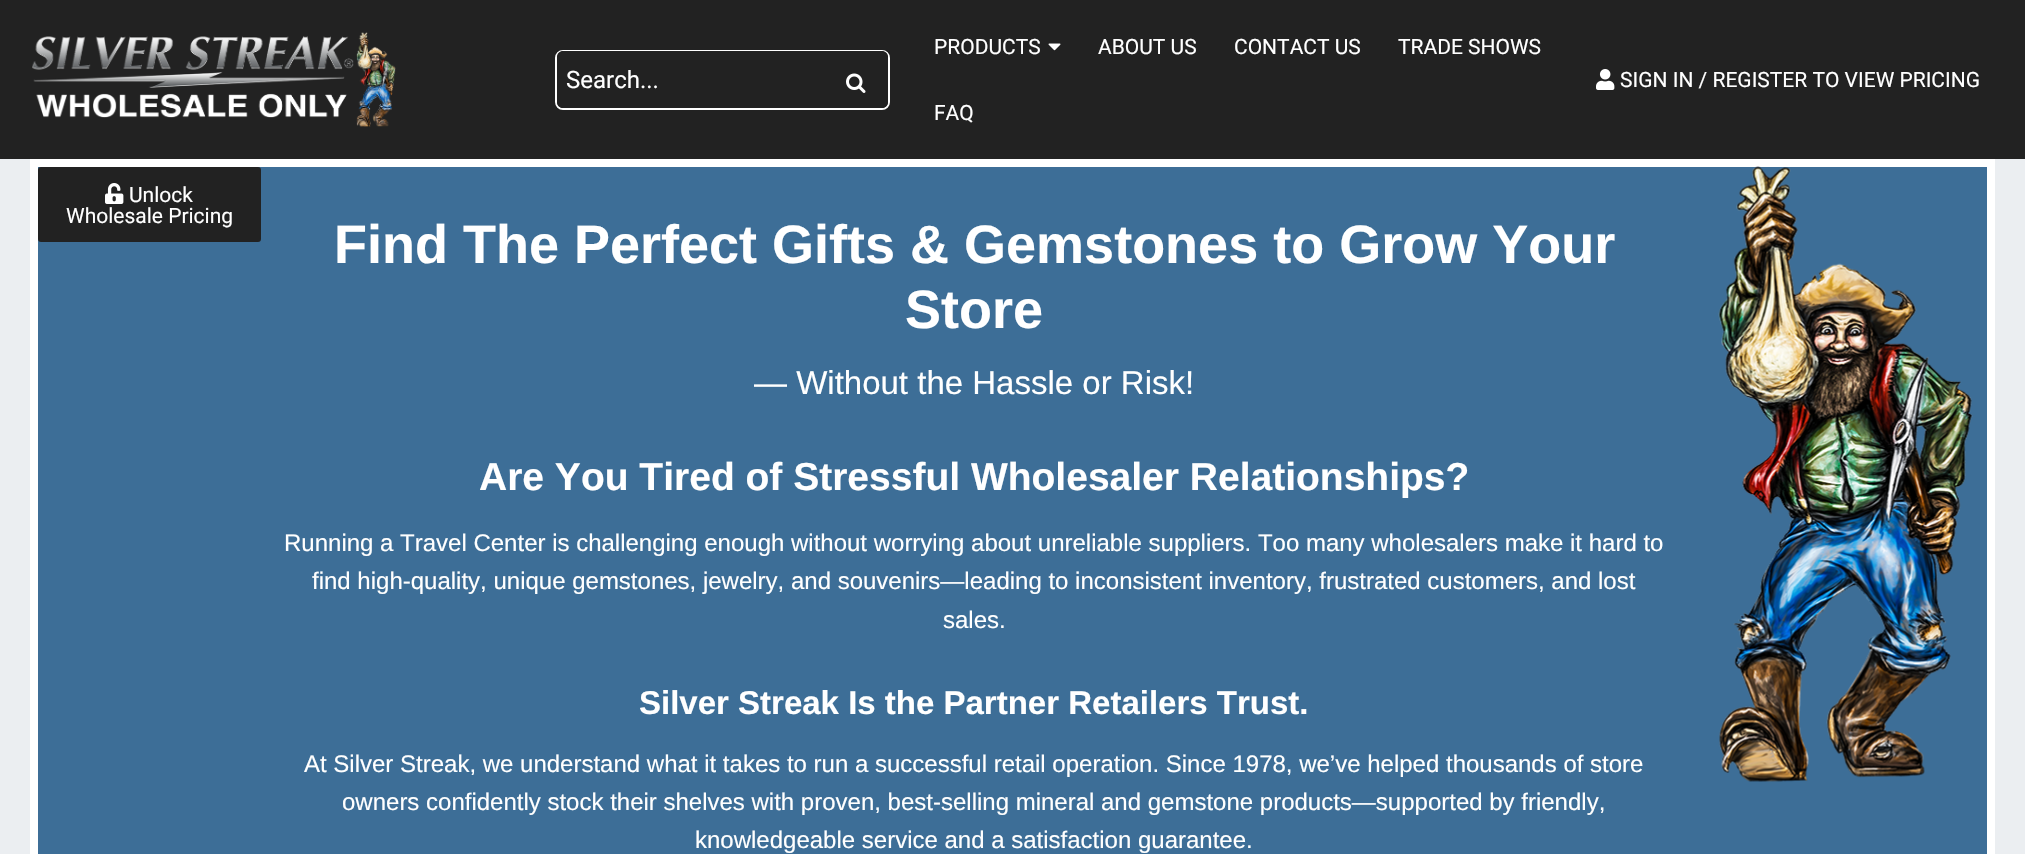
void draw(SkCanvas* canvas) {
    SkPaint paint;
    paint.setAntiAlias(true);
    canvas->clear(0xFFEBEEF1);
    paint.setColor(0xFF222222);
    canvas->drawRect(SkRect::MakeXYWH(0, 0, 2025, 159), paint);
    canvas->drawImageRect(SkImages::DeferredFromEncodedData(SkData::MakeFromFileName("img1.png")), SkRect::MakeXYWH(32, 32, 364, 95), SkSamplingOptions());
    paint.setStyle(SkPaint::kStroke_Style);
    paint.setStrokeWidth(2);
    paint.setColor(0xFFFFFFFF);
    canvas->drawRoundRect(SkRect::MakeXYWH(556, 51, 333, 58), 7, 7, paint);
    paint.setStyle(SkPaint::kFill_Style);
    paint.setColor(0xFF222222);
    canvas->drawPath(SkPathBuilder().moveTo(563, 51).lineTo(824, 51).lineTo(824, 108).lineTo(563, 108).cubicTo(559.5f, 108, 557, 105.5f, 557, 102).lineTo(557, 57).cubicTo(557, 53.5f, 559.5f, 51, 563, 51).close().detach(), paint);
    SkFont font1(fontMgr->matchFamilyStyle("Roboto", SkFontStyle::Normal()), 24);
    font1.setSubpixel(true);
    paint.setColor(0xFFFFFFFF);
    canvas->drawString("Search...", 566, 88, font1, paint);
    paint.setColor(0xFF222222);
    canvas->drawPath(SkPathBuilder().moveTo(824, 51).lineTo(882, 51).cubicTo(885.5f, 51, 888, 53.5f, 888, 57).lineTo(888, 102).cubicTo(888, 105.5f, 885.5f, 108, 882, 108).lineTo(824, 108).close().detach(), paint);
    canvas->drawImageRect(SkImages::DeferredFromEncodedData(SkData::MakeFromFileName("img2.png")), SkRect::MakeXYWH(846, 73, 20, 20), SkSamplingOptions());
    SkFont font2(fontMgr->matchFamilyStyle("Roboto", SkFontStyle::Normal()), 21);
    font2.setSubpixel(true);
    paint.setColor(0xFFFFFFFF);
    canvas->drawString("PRODUCTS", 934, 54, font2, paint);
    canvas->drawImageRect(SkImages::DeferredFromEncodedData(SkData::MakeFromFileName("img3.png")), SkRect::MakeXYWH(1048, 43, 13, 8), SkSamplingOptions());
    canvas->drawString("ABOUT US", 1098, 54, font2, paint);
    canvas->drawString("CONTACT US", 1234, 54, font2, paint);
    canvas->drawString("TRADE SHOWS", 1398, 54, font2, paint);
    canvas->drawString("FAQ", 934, 120, font2, paint);
    canvas->drawImageRect(SkImages::DeferredFromEncodedData(SkData::MakeFromFileName("img4.png")), SkRect::MakeXYWH(1596, 69, 19, 21), SkSamplingOptions());
    canvas->drawString("SIGN IN / REGISTER TO VIEW PRICING", 1620, 87, font2, paint);
    paint.setColor(0xFF3D6E97);
    canvas->drawRect(SkRect::MakeXYWH(34, 163, 1957, 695), paint);
    paint.setStyle(SkPaint::kStroke_Style);
    paint.setStrokeWidth(8);
    paint.setColor(0xFFFFFFFF);
    canvas->drawRect(SkRect::MakeXYWH(34, 163, 1957, 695), paint);
    paint.setStyle(SkPaint::kFill_Style);
    paint.setColor(0xFF222222);
    canvas->drawRoundRect(SkRect::MakeXYWH(39, 168, 221, 73), 2, 2, paint);
    paint.setStyle(SkPaint::kStroke_Style);
    paint.setStrokeWidth(2);
    canvas->drawRoundRect(SkRect::MakeXYWH(39, 168, 221, 73), 2, 2, paint);
    canvas->drawImageRect(SkImages::DeferredFromEncodedData(SkData::MakeFromFileName("img5.png")), SkRect::MakeXYWH(105, 183, 19, 21), SkSamplingOptions());
    paint.setStyle(SkPaint::kFill_Style);
    paint.setColor(0xFFFFFFFF);
    canvas->drawString("Unlock", 129, 202, font2, paint);
    canvas->drawString("Wholesale Pricing", 66, 223, font2, paint);
    canvas->drawImageRect(SkImages::DeferredFromEncodedData(SkData::MakeFromFileName("img6.png")), SkRect::MakeXYWH(1718, 166, 255, 616), SkSamplingOptions());
    SkFont font3(fontMgr->matchFamilyStyle("Liberation Sans", SkFontStyle::Bold()), 54);
    font3.setSubpixel(true);
    canvas->drawString("Find The Perfect Gifts & Gemstones to Grow Your", 334, 263, font3, paint);
    canvas->drawString("Store", 905, 328, font3, paint);
    SkFont font4(fontMgr->matchFamilyStyle("Liberation Sans", SkFontStyle::Normal()), 33);
    font4.setSubpixel(true);
    canvas->drawString("— Without the Hassle or Risk!", 754, 394, font4, paint);
    SkFont font5(fontMgr->matchFamilyStyle("Liberation Sans", SkFontStyle::Bold()), 39);
    font5.setSubpixel(true);
    canvas->drawString("Are You Tired of Stressful Wholesaler Relationships?", 479, 490, font5, paint);
    SkFont font6(fontMgr->matchFamilyStyle("Liberation Sans", SkFontStyle::Normal()), 24);
    font6.setSubpixel(true);
    canvas->drawString("Running a Travel Center is challenging enough without worrying about unreliable suppliers. Too many wholesalers make it hard to", 284, 551, font6, paint);
    canvas->drawString("find high-quality, unique gemstones, jewelry, and souvenirs—leading to inconsistent inventory, frustrated customers, and lost", 312, 589, font6, paint);
    canvas->drawString("sales.", 943, 628, font6, paint);
    SkFont font7(fontMgr->matchFamilyStyle("Liberation Sans", SkFontStyle::Bold()), 33);
    font7.setSubpixel(true);
    canvas->drawString("Silver Streak Is the Partner Retailers Trust.", 639, 714, font7, paint);
    canvas->drawString("At Silver Streak, we understand what it takes to run a successful retail operation. Since 1978, we’ve helped thousands of store", 304, 772, font6, paint);
    canvas->drawString("owners confidently stock their shelves with proven, best-selling mineral and gemstone products—supported by friendly,", 342, 810, font6, paint);
    canvas->drawString("knowledgeable service and a satisfaction guarantee.", 695, 848, font6, paint);
}
